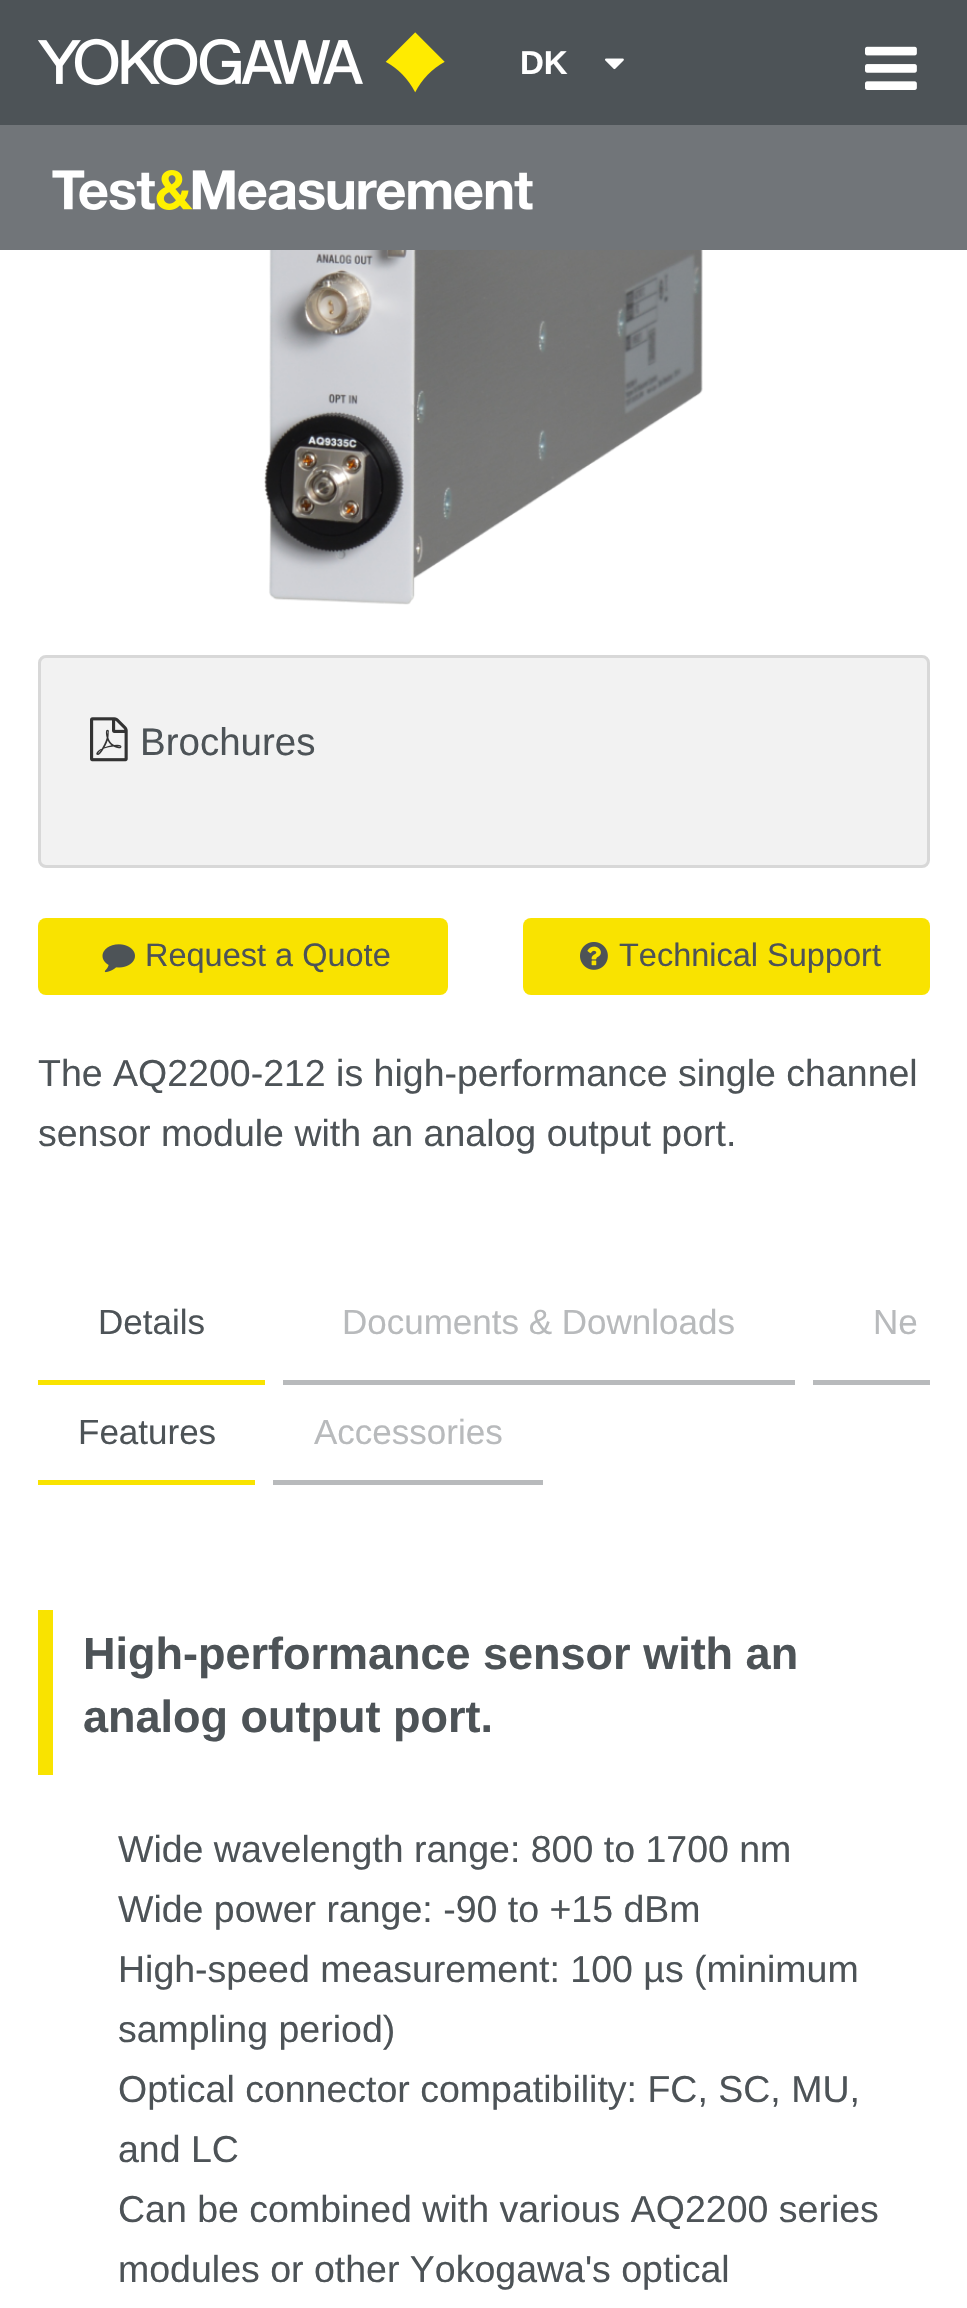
void draw(SkCanvas* canvas) {
    SkPaint paint;
    paint.setAntiAlias(true);
    canvas->clear(0xFFFFFFFF);
    paint.setColor(0xFF4D5357);
    canvas->drawRect(SkRect::MakeXYWH(0, 0, 967, 125), paint);
    canvas->drawImageRect(SkImages::DeferredFromEncodedData(SkData::MakeFromFileName("img1.png")), SkRect::MakeXYWH(38, 32, 407, 61), SkSamplingOptions());
    SkFont font1(fontMgr->matchFamilyStyle("Liberation Sans", SkFontStyle::Bold()), 33);
    font1.setSubpixel(true);
    paint.setColor(0xFFFFFFFF);
    canvas->drawString("DK", 520, 74, font1, paint);
    canvas->drawImageRect(SkImages::DeferredFromEncodedData(SkData::MakeFromFileName("img2.png")), SkRect::MakeXYWH(605, 58, 19, 12), SkSamplingOptions());
    canvas->drawImageRect(SkImages::DeferredFromEncodedData(SkData::MakeFromFileName("img3.png")), SkRect::MakeXYWH(865, 46, 52, 44), SkSamplingOptions());
    paint.setColor(0xFF717579);
    canvas->drawRect(SkRect::MakeXYWH(0, 125, 967, 125), paint);
    canvas->drawImageRect(SkImages::DeferredFromEncodedData(SkData::MakeFromFileName("img4.png")), SkRect::MakeXYWH(52, 170, 481, 40), SkSamplingOptions());
    canvas->drawImageRect(SkImages::DeferredFromEncodedData(SkData::MakeFromFileName("img5.png")), SkRect::MakeXYWH(264, 250, 439, 355), SkSamplingOptions());
    paint.setColor(0xFFF2F2F2);
    canvas->drawRoundRect(SkRect::MakeXYWH(39.5f, 656.5f, 889, 210), 6.5f, 6.5f, paint);
    paint.setStyle(SkPaint::kStroke_Style);
    paint.setStrokeWidth(3);
    paint.setColor(0xFFD8D8D8);
    canvas->drawRoundRect(SkRect::MakeXYWH(39.5f, 656.5f, 889, 210), 6.5f, 6.5f, paint);
    canvas->drawImageRect(SkImages::DeferredFromEncodedData(SkData::MakeFromFileName("img6.png")), SkRect::MakeXYWH(90, 717, 38, 45), SkSamplingOptions());
    SkFont font2(fontMgr->matchFamilyStyle("Liberation Sans", SkFontStyle::Normal()), 38.5f);
    font2.setSubpixel(true);
    paint.setStyle(SkPaint::kFill_Style);
    paint.setColor(0xFF4D5357);
    canvas->drawString("Brochures", 140, 755, font2, paint);
    paint.setColor(0xFFF9E300);
    canvas->drawRoundRect(SkRect::MakeXYWH(38, 918, 410, 77), 8, 8, paint);
    canvas->drawImageRect(SkImages::DeferredFromEncodedData(SkData::MakeFromFileName("img7.png")), SkRect::MakeXYWH(102, 944, 33, 29), SkSamplingOptions());
    SkFont font3(fontMgr->matchFamilyStyle("Liberation Sans", SkFontStyle::Normal()), 32.5f);
    font3.setSubpixel(true);
    paint.setColor(0xFF4D5357);
    canvas->drawString("Request a Quote", 145, 966, font3, paint);
    paint.setColor(0xFFF9E300);
    canvas->drawRoundRect(SkRect::MakeXYWH(523, 918, 407, 77), 8, 8, paint);
    canvas->drawImageRect(SkImages::DeferredFromEncodedData(SkData::MakeFromFileName("img8.png")), SkRect::MakeXYWH(580, 942, 28, 28), SkSamplingOptions());
    paint.setColor(0xFF4D5357);
    canvas->drawString("Technical Support", 619, 966, font3, paint);
    SkFont font4(fontMgr->matchFamilyStyle("Liberation Sans", SkFontStyle::Normal()), 37.5f);
    font4.setSubpixel(true);
    canvas->drawString("The AQ2200-212 is high-performance single channel", 38, 1086, font4, paint);
    canvas->drawString("sensor module with an analog output port.", 38, 1146, font4, paint);
    paint.setColor(0xFFF9E300);
    canvas->drawRect(SkRect::MakeXYWH(38, 1380, 227, 5), paint);
    SkFont font5(fontMgr->matchFamilyStyle("Liberation Sans", SkFontStyle::Normal()), 35);
    font5.setSubpixel(true);
    paint.setColor(0xFF4D5357);
    canvas->drawString("Details", 98, 1334, font5, paint);
    paint.setColor(0xFFB8BABC);
    canvas->drawRect(SkRect::MakeXYWH(283, 1380, 512, 5), paint);
    canvas->drawString("Documents & Downloads", 342, 1334, font5, paint);
    canvas->drawRect(SkRect::MakeXYWH(813, 1380, 117, 5), paint);
    canvas->drawString("Ne", 873, 1334, font5, paint);
    paint.setColor(0xFFF9E300);
    canvas->drawRect(SkRect::MakeXYWH(38, 1480, 217, 5), paint);
    paint.setColor(0xFF4D5357);
    canvas->drawString("Features", 78, 1444, font5, paint);
    paint.setColor(0xFFB8BABC);
    canvas->drawRect(SkRect::MakeXYWH(273, 1480, 270, 5), paint);
    canvas->drawString("Accessories", 314, 1444, font5, paint);
    paint.setColor(0xFFF9E300);
    canvas->drawRect(SkRect::MakeXYWH(38, 1610, 15, 165), paint);
    SkFont font6(fontMgr->matchFamilyStyle("Liberation Sans", SkFontStyle::Bold()), 45);
    font6.setSubpixel(true);
    paint.setColor(0xFF4D5357);
    canvas->drawString("High-performance sensor with an", 83, 1669, font6, paint);
    canvas->drawString("analog output port.", 83, 1732, font6, paint);
    canvas->drawString("Wide wavelength range: 800 to 1700 nm", 118, 1862, font4, paint);
    canvas->drawString("Wide power range: -90 to +15 dBm", 118, 1922, font4, paint);
    canvas->drawString("High-speed measurement: 100 µs (minimum", 118, 1982, font4, paint);
    canvas->drawString("sampling period)", 118, 2042, font4, paint);
    canvas->drawString("Optical connector compatibility: FC, SC, MU,", 118, 2102, font4, paint);
    canvas->drawString("and LC", 118, 2162, font4, paint);
    canvas->drawString("Can be combined with various AQ2200 series", 118, 2222, font4, paint);
    canvas->drawString("modules or other Yokogawa's optical", 118, 2282, font4, paint);
}
